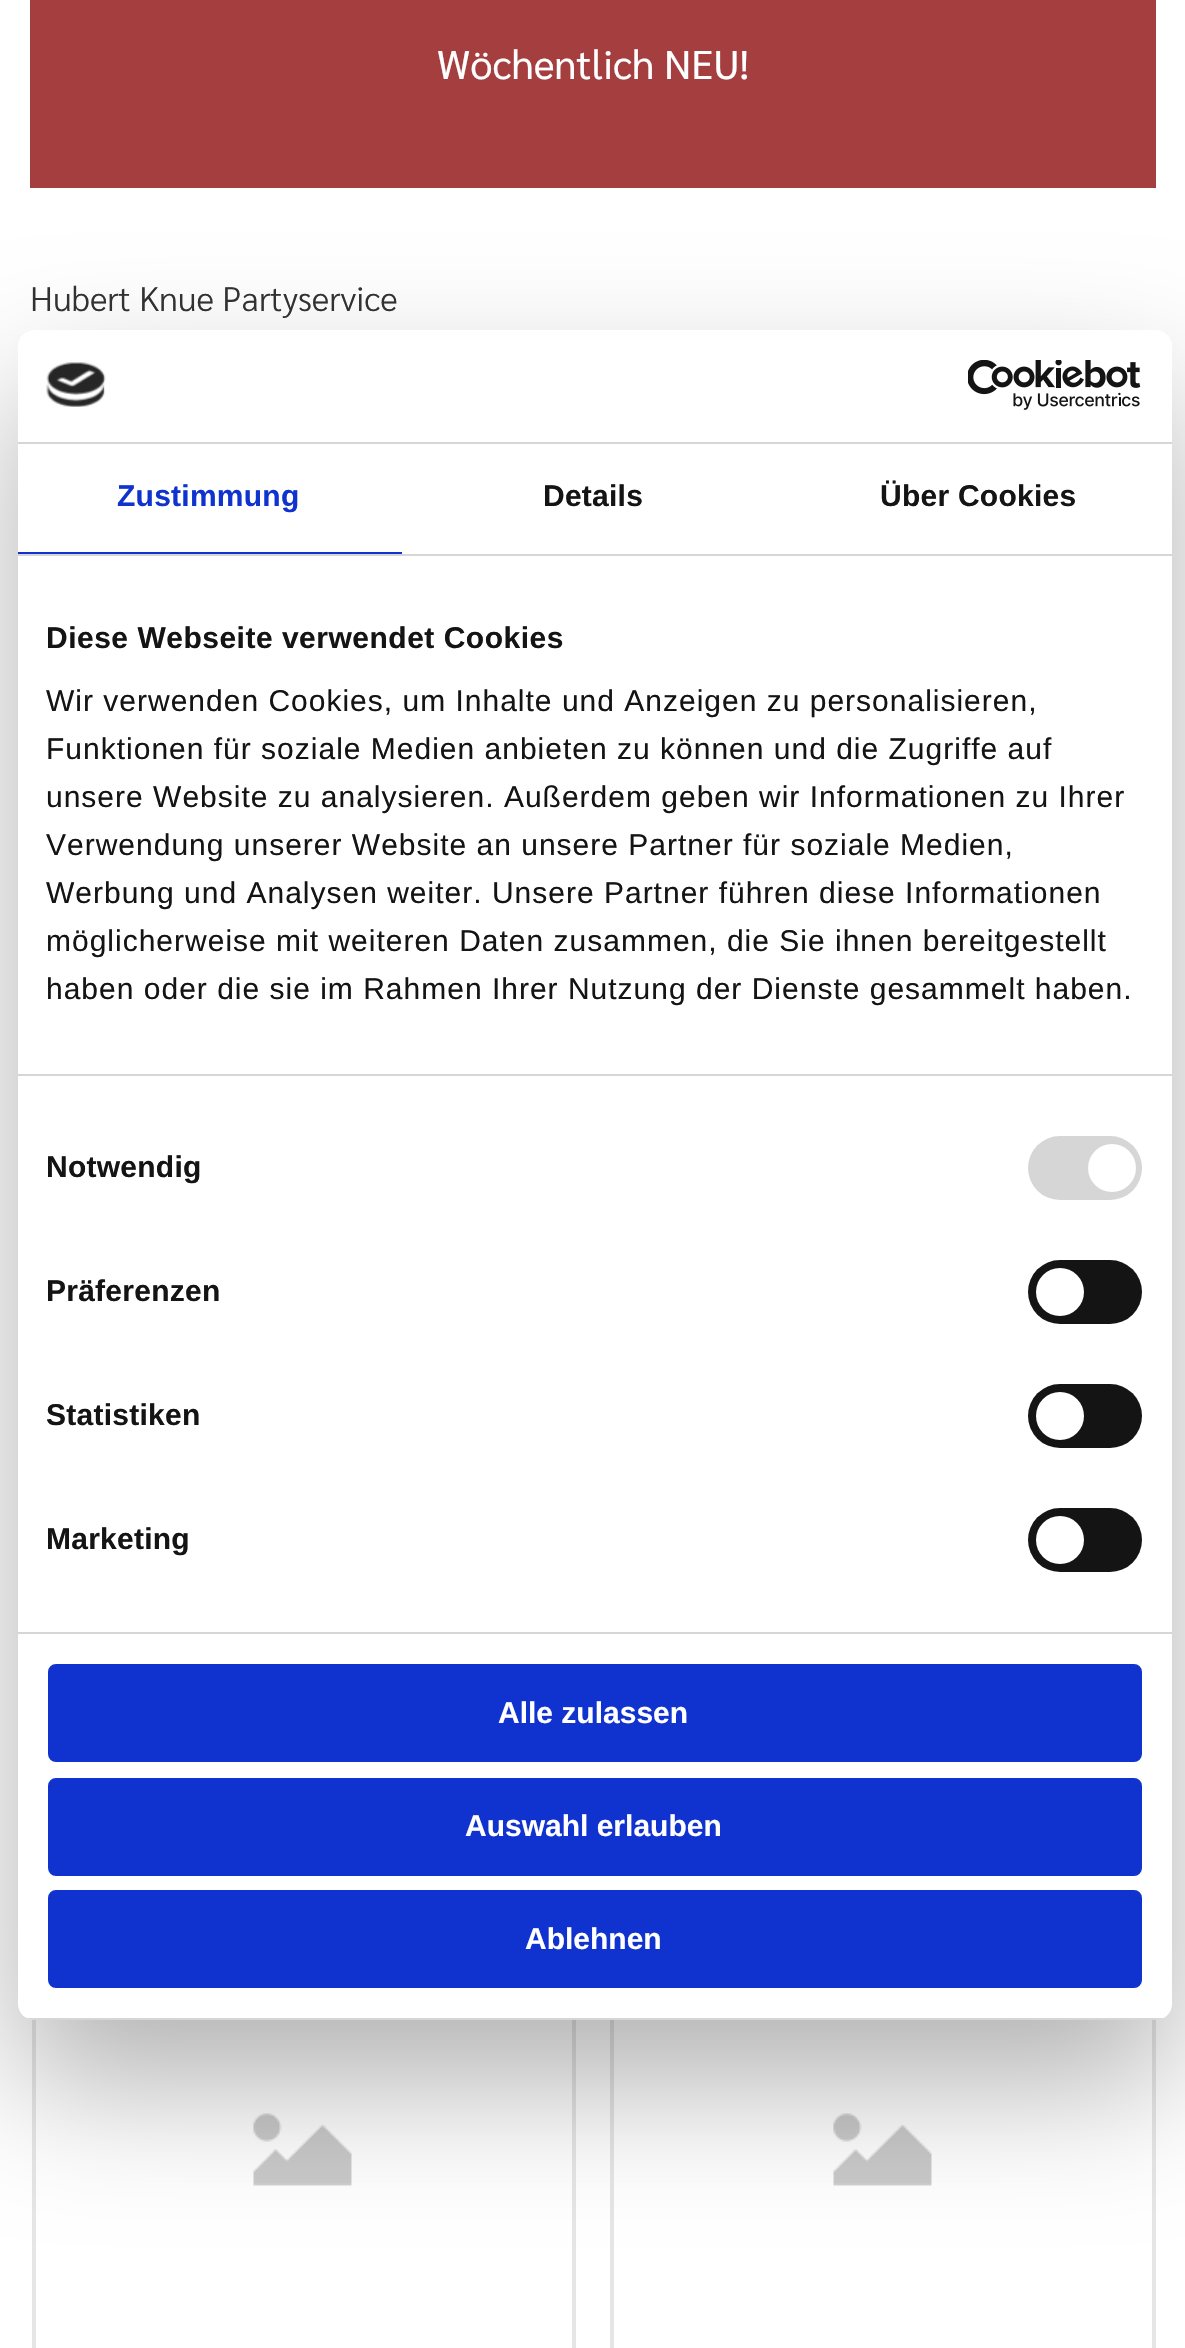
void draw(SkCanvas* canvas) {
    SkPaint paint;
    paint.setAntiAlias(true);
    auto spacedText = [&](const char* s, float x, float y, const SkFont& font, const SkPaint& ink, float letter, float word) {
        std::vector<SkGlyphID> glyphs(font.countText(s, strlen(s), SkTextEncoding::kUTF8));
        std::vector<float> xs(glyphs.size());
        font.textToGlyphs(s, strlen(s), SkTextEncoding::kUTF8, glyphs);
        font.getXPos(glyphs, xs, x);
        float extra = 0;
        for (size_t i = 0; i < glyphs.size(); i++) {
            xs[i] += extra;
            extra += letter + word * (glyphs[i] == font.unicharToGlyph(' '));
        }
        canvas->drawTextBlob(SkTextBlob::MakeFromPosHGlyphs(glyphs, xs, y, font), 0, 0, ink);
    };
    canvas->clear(0xFFFFFFFF);
    paint.setColor(0xFFA53E3F);
    canvas->drawRect(SkRect::MakeXYWH(30, 0, 1126, 188), paint);
    SkFont font1(fontMgr->matchFamilyStyle("Sarabun", SkFontStyle::Normal()), 40);
    font1.setSubpixel(true);
    paint.setColor(0xFFFFFFFF);
    canvas->drawString("Wöchentlich NEU!", 437, 79, font1, paint);
    SkFont font2(fontMgr->matchFamilyStyle("Sarabun", SkFontStyle(300, SkFontStyle::kNormal_Width, SkFontStyle::kUpright_Slant)), 34);
    font2.setSubpixel(true);
    paint.setColor(0xFF333333);
    canvas->drawString("Hubert Knue Partyservice", 30, 311, font2, paint);
    canvas->drawImageRect(SkImages::DeferredFromEncodedData(SkData::MakeFromFileName("img1.png")), SkRect::MakeXYWH(253, 2113, 99, 73), SkSamplingOptions());
    paint.setStyle(SkPaint::kStroke_Style);
    paint.setStrokeWidth(4);
    paint.setColor(0xFFE6E6E6);
    canvas->drawRect(SkRect::MakeXYWH(34, 1880, 540, 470), paint);
    canvas->drawImageRect(SkImages::DeferredFromEncodedData(SkData::MakeFromFileName("img1.png")), SkRect::MakeXYWH(833, 2113, 99, 73), SkSamplingOptions());
    canvas->drawRect(SkRect::MakeXYWH(612, 1880, 542, 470), paint);
    paint.setStyle(SkPaint::kFill_Style);
    paint.setColor(0x4D000000);
    paint.setMaskFilter(SkMaskFilter::MakeBlur(kNormal_SkBlurStyle, 68));
    canvas->drawRoundRect(SkRect::MakeXYWH(18, 394, 1154, 1690), 16, 16, paint);
    paint.setMaskFilter(nullptr);
    paint.setColor(0xFFFFFFFF);
    canvas->drawRoundRect(SkRect::MakeXYWH(18, 330, 1154, 1690), 16, 16, paint);
    paint.setColor(0xFFD6D6D6);
    canvas->drawRect(SkRect::MakeXYWH(18, 442, 1154, 2), paint);
    canvas->drawImageRect(SkImages::DeferredFromEncodedData(SkData::MakeFromFileName("img2.png")), SkRect::MakeXYWH(46, 362, 60, 45), SkSamplingOptions());
    canvas->drawImageRect(SkImages::DeferredFromEncodedData(SkData::MakeFromFileName("img3.png")), SkRect::MakeXYWH(968, 360, 173, 50), SkSamplingOptions());
    canvas->drawRect(SkRect::MakeXYWH(18, 554, 1154, 2), paint);
    paint.setColor(0xFF1032CF);
    canvas->drawRect(SkRect::MakeXYWH(18, 552, 384, 2), paint);
    SkFont font3(fontMgr->matchFamilyStyle("Liberation Sans", SkFontStyle::Bold()), 30);
    font3.setSubpixel(true);
    spacedText("Zustimmung", 117, 506, font3, paint, 0.25f, 0);
    paint.setColor(0xFF141414);
    spacedText("Details", 543, 506, font3, paint, 0.25f, 0);
    spacedText("Über Cookies", 880, 506, font3, paint, 0.25f, 0);
    paint.setColor(0xFFD6D6D6);
    canvas->drawRect(SkRect::MakeXYWH(18, 1074, 1154, 2), paint);
    paint.setColor(0xFF141414);
    spacedText("Diese Webseite verwendet Cookies", 46, 648, font3, paint, 0.5f, 0);
    SkFont font4(fontMgr->matchFamilyStyle("Liberation Sans", SkFontStyle::Normal()), 30);
    font4.setSubpixel(true);
    spacedText("Wir verwenden Cookies, um Inhalte und Anzeigen zu personalisieren,", 46, 711, font4, paint, 1, 0);
    spacedText("Funktionen für soziale Medien anbieten zu können und die Zugriffe auf", 46, 759, font4, paint, 1, 0);
    spacedText("unsere Website zu analysieren. Außerdem geben wir Informationen zu Ihrer", 46, 807, font4, paint, 1, 0);
    spacedText("Verwendung unserer Website an unsere Partner für soziale Medien,", 46, 855, font4, paint, 1, 0);
    spacedText("Werbung und Analysen weiter. Unsere Partner führen diese Informationen", 46, 903, font4, paint, 1, 0);
    spacedText("möglicherweise mit weiteren Daten zusammen, die Sie ihnen bereitgestellt", 46, 951, font4, paint, 1, 0);
    spacedText("haben oder die sie im Rahmen Ihrer Nutzung der Dienste gesammelt haben.", 46, 999, font4, paint, 1, 0);
    paint.setColor(0xFFD6D6D6);
    canvas->drawRect(SkRect::MakeXYWH(18, 1632, 1154, 2), paint);
    paint.setColor(0xFF141414);
    spacedText("Notwendig", 46, 1177, font3, paint, 0.25f, 0);
    paint.setColor(0xFFD6D6D6);
    canvas->drawRoundRect(SkRect::MakeXYWH(1028, 1136, 114, 64), 32, 32, paint);
    paint.setColor(0xFFFFFFFF);
    canvas->drawCircle(1112, 1168, 24, paint);
    paint.setColor(0xFF141414);
    spacedText("Präferenzen", 46, 1301, font3, paint, 0.25f, 0);
    canvas->drawRoundRect(SkRect::MakeXYWH(1028, 1260, 114, 64), 32, 32, paint);
    paint.setColor(0xFFFFFFFF);
    canvas->drawCircle(1060, 1292, 24, paint);
    paint.setColor(0xFF141414);
    spacedText("Statistiken", 46, 1425, font3, paint, 0.25f, 0);
    canvas->drawRoundRect(SkRect::MakeXYWH(1028, 1384, 114, 64), 32, 32, paint);
    paint.setColor(0xFFFFFFFF);
    canvas->drawCircle(1060, 1416, 24, paint);
    paint.setColor(0xFF141414);
    spacedText("Marketing", 46, 1549, font3, paint, 0.25f, 0);
    canvas->drawRoundRect(SkRect::MakeXYWH(1028, 1508, 114, 64), 32, 32, paint);
    paint.setColor(0xFFFFFFFF);
    canvas->drawCircle(1060, 1540, 24, paint);
    canvas->save();
    canvas->clipPath(SkPathBuilder().moveTo(34, 330).lineTo(1156, 330).cubicTo(1165, 330, 1172, 337, 1172, 346).lineTo(1172, 2004).cubicTo(1172, 2013, 1165, 2020, 1156, 2020).lineTo(34, 2020).cubicTo(25, 2020, 18, 2013, 18, 2004).lineTo(18, 346).cubicTo(18, 337, 25, 330, 34, 330).close().detach(), true);
    paint.setColor(0xFFD6D6D6);
    canvas->drawRect(SkRect::MakeXYWH(18, 2018, 1154, 2), paint);
    canvas->restore();
    paint.setColor(0xFF1032CF);
    canvas->drawRoundRect(SkRect::MakeXYWH(50, 1666, 1090, 94), 6, 6, paint);
    paint.setStyle(SkPaint::kStroke_Style);
    canvas->drawRoundRect(SkRect::MakeXYWH(50, 1666, 1090, 94), 6, 6, paint);
    paint.setStyle(SkPaint::kFill_Style);
    paint.setColor(0xFFFFFFFF);
    canvas->drawString("Alle zulassen", 498, 1723, font3, paint);
    paint.setColor(0xFF1032CF);
    canvas->drawRoundRect(SkRect::MakeXYWH(50, 1780, 1090, 94), 6, 6, paint);
    paint.setStyle(SkPaint::kStroke_Style);
    canvas->drawRoundRect(SkRect::MakeXYWH(50, 1780, 1090, 94), 6, 6, paint);
    paint.setStyle(SkPaint::kFill_Style);
    paint.setColor(0xFFFFFFFF);
    canvas->drawString("Auswahl erlauben", 465, 1836, font3, paint);
    paint.setColor(0xFF1032CF);
    canvas->drawRoundRect(SkRect::MakeXYWH(50, 1892, 1090, 94), 6, 6, paint);
    paint.setStyle(SkPaint::kStroke_Style);
    canvas->drawRoundRect(SkRect::MakeXYWH(50, 1892, 1090, 94), 6, 6, paint);
    paint.setStyle(SkPaint::kFill_Style);
    paint.setColor(0xFFFFFFFF);
    canvas->drawString("Ablehnen", 525, 1949, font3, paint);
}
